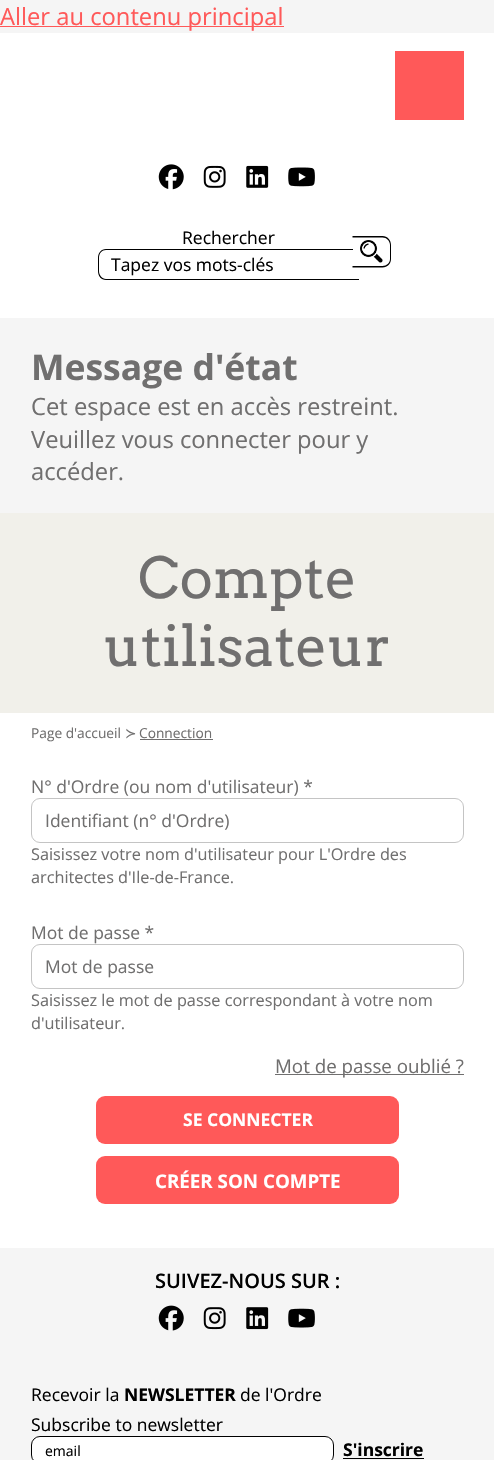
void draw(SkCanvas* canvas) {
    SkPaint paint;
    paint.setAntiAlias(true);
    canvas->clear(0xFFF5F5F5);
    paint.setColor(0xFFFF5959);
    canvas->drawRect(SkRect::MakeXYWH(0, 26, 284, 1), paint);
    SkFont font1(fontMgr->matchFamilyStyle("Open Sans", SkFontStyle::Normal()), 23.75f);
    font1.setSubpixel(true);
    canvas->drawString("Aller au contenu principal", 0, 25, font1, paint);
    paint.setColor(0xFFFFFFFF);
    canvas->drawRect(SkRect::MakeXYWH(0, 33, 494, 285), paint);
    paint.setColor(0xFFFF5959);
    canvas->drawRect(SkRect::MakeXYWH(395, 51, 69, 69), paint);
    canvas->drawImageRect(SkImages::DeferredFromEncodedData(SkData::MakeFromFileName("img1.png")), SkRect::MakeXYWH(158, 164, 26, 26), SkSamplingOptions());
    canvas->drawImageRect(SkImages::DeferredFromEncodedData(SkData::MakeFromFileName("img2.png")), SkRect::MakeXYWH(203, 165, 23, 23), SkSamplingOptions());
    canvas->drawImageRect(SkImages::DeferredFromEncodedData(SkData::MakeFromFileName("img3.png")), SkRect::MakeXYWH(246, 165, 23, 23), SkSamplingOptions());
    canvas->drawImageRect(SkImages::DeferredFromEncodedData(SkData::MakeFromFileName("img4.png")), SkRect::MakeXYWH(288, 167, 27, 20), SkSamplingOptions());
    SkFont font2(fontMgr->matchFamilyStyle("Open Sans", SkFontStyle::Normal()), 17.5f);
    font2.setSubpixel(true);
    paint.setColor(0xFF000000);
    canvas->drawString("Rechercher", 182, 244, font2, paint);
    canvas->drawPath(SkPathBuilder(SkPathFillType::kEvenOdd).moveTo(106, 249).lineTo(359, 249).lineTo(359, 280).lineTo(106, 280).cubicTo(101, 280, 98, 276, 98, 271).lineTo(98, 258).cubicTo(98, 253, 101, 249, 106, 249).close().moveTo(106, 250).lineTo(359, 250).lineTo(359, 279).lineTo(106, 279).cubicTo(102, 279, 99, 275, 99, 271).lineTo(99, 258).cubicTo(99, 253, 102, 250, 106, 250).close().detach(), paint);
    canvas->drawString("Tapez vos mots-clés", 111, 271, font2, paint);
    paint.setColor(0xFFFFFFFF);
    canvas->drawPath(SkPathBuilder().moveTo(353, 236).lineTo(382, 236).cubicTo(387, 236, 391, 240, 391, 245).lineTo(391, 259).cubicTo(391, 264, 387, 268, 382, 268).lineTo(353, 268).close().detach(), paint);
    canvas->drawImageRect(SkImages::DeferredFromEncodedData(SkData::MakeFromFileName("img5.png")), SkRect::MakeXYWH(360, 240, 23, 23), SkSamplingOptions());
    paint.setColor(0xFF000000);
    canvas->drawPath(SkPathBuilder(SkPathFillType::kEvenOdd).moveTo(352.5f, 236).lineTo(382.5f, 236).cubicTo(387.5f, 236, 391, 240, 391, 245).lineTo(391, 259).cubicTo(391, 263.5f, 387.5f, 267.5f, 382.5f, 267.5f).lineTo(352.5f, 267.5f).close().moveTo(352.5f, 237.5f).lineTo(382.5f, 237.5f).cubicTo(386.5f, 237.5f, 390, 241, 390, 245).lineTo(390, 259).cubicTo(390, 263, 386.5f, 266, 382.5f, 266).lineTo(352.5f, 266).close().detach(), paint);
    SkFont font3(fontMgr->matchFamilyStyle("Open Sans", SkFontStyle::Bold()), 35.5f);
    font3.setSubpixel(true);
    paint.setColor(0xFF706F6F);
    canvas->drawString("Message d'état", 31, 380, font3, paint);
    canvas->drawString("Cet espace est en accès restreint.", 31, 415, font1, paint);
    canvas->drawString("Veuillez vous connecter pour y", 31, 448, font1, paint);
    canvas->drawString("accéder.", 31, 480, font1, paint);
    paint.setColor(0xFFF1F0EA);
    canvas->drawRect(SkRect::MakeXYWH(0, 513, 494, 200), paint);
    SkFont font4(fontMgr->matchFamilyStyle("Arvo", SkFontStyle::Normal()), 56.25f);
    font4.setSubpixel(true);
    paint.setColor(0xFF706F6F);
    canvas->drawString("Compte", 138, 598, font4, paint);
    canvas->drawString("utilisateur", 104, 666, font4, paint);
    paint.setColor(0xFFFFFFFF);
    canvas->drawRect(SkRect::MakeXYWH(0, 713, 494, 535), paint);
    SkFont font5(fontMgr->matchFamilyStyle("Open Sans", SkFontStyle::Normal()), 13.75f);
    font5.setSubpixel(true);
    paint.setColor(0xFF706F6F);
    canvas->drawString("Page d'accueil", 31, 738, font5, paint);
    SkFont font6(fontMgr->matchFamilyStyle("DejaVu Sans", SkFontStyle::Normal()), 13.75f);
    font6.setSubpixel(true);
    canvas->drawString("≻", 125, 738, font6, paint);
    canvas->drawString("Connection", 139, 738, font5, paint);
    canvas->drawRect(SkRect::MakeXYWH(140, 739, 73, 1), paint);
    canvas->drawString("N° d'Ordre (ou nom d'utilisateur) *", 31, 793, font2, paint);
    paint.setStyle(SkPaint::kStroke_Style);
    paint.setStrokeWidth(1);
    paint.setColor(0xFFC4C4C4);
    canvas->drawRoundRect(SkRect::MakeXYWH(31.5f, 798.5f, 432, 44), 8.5f, 8.5f, paint);
    paint.setStyle(SkPaint::kFill_Style);
    paint.setColor(0xFF706F6F);
    canvas->drawString("Identifiant (n° d'Ordre)", 45, 827, font2, paint);
    SkFont font7(fontMgr->matchFamilyStyle("Open Sans", SkFontStyle::Normal()), 16.25f);
    font7.setSubpixel(true);
    canvas->drawString("Saisissez votre nom d'utilisateur pour L'Ordre des", 31, 860, font7, paint);
    canvas->drawString("architectes d'Ile-de-France.", 31, 883, font7, paint);
    canvas->drawString("Mot de passe *", 31, 939, font2, paint);
    paint.setStyle(SkPaint::kStroke_Style);
    paint.setColor(0xFFC4C4C4);
    canvas->drawRoundRect(SkRect::MakeXYWH(31.5f, 944.5f, 432, 44), 8.5f, 8.5f, paint);
    paint.setStyle(SkPaint::kFill_Style);
    paint.setColor(0xFF706F6F);
    canvas->drawString("Mot de passe", 45, 973, font2, paint);
    canvas->drawString("Saisissez le mot de passe correspondant à votre nom", 31, 1006, font7, paint);
    canvas->drawString("d'utilisateur.", 31, 1029, font7, paint);
    canvas->drawRect(SkRect::MakeXYWH(275, 1074, 189, 1), paint);
    SkFont font8(fontMgr->matchFamilyStyle("Open Sans", SkFontStyle::Normal()), 18.75f);
    font8.setSubpixel(true);
    canvas->drawString("Mot de passe oublié ?", 275, 1073, font8, paint);
    paint.setColor(0xFFFF5959);
    canvas->drawRoundRect(SkRect::MakeXYWH(96, 1096, 303, 48), 9, 9, paint);
    SkFont font9(fontMgr->matchFamilyStyle("Open Sans", SkFontStyle::Bold()), 17.5f);
    font9.setSubpixel(true);
    paint.setColor(0xFFFFFFFF);
    canvas->drawString("SE CONNECTER", 183, 1126, font9, paint);
    paint.setColor(0xFFFF5959);
    canvas->drawRoundRect(SkRect::MakeXYWH(96, 1156, 303, 48), 9, 9, paint);
    SkFont font10(fontMgr->matchFamilyStyle("Open Sans", SkFontStyle::Bold()), 18.75f);
    font10.setSubpixel(true);
    paint.setColor(0xFFFFFFFF);
    canvas->drawString("CRÉER SON COMPTE", 155, 1188, font10, paint);
    SkFont font11(fontMgr->matchFamilyStyle("Open Sans", SkFontStyle(600, SkFontStyle::kNormal_Width, SkFontStyle::kUpright_Slant)), 20);
    font11.setSubpixel(true);
    paint.setColor(0xFF000000);
    canvas->drawString("SUIVEZ-NOUS SUR :", 155, 1288, font11, paint);
    canvas->drawImageRect(SkImages::DeferredFromEncodedData(SkData::MakeFromFileName("img6.png")), SkRect::MakeXYWH(158, 1305, 26, 26), SkSamplingOptions());
    canvas->drawImageRect(SkImages::DeferredFromEncodedData(SkData::MakeFromFileName("img7.png")), SkRect::MakeXYWH(203, 1307, 23, 23), SkSamplingOptions());
    canvas->drawImageRect(SkImages::DeferredFromEncodedData(SkData::MakeFromFileName("img8.png")), SkRect::MakeXYWH(246, 1307, 23, 23), SkSamplingOptions());
    canvas->drawImageRect(SkImages::DeferredFromEncodedData(SkData::MakeFromFileName("img9.png")), SkRect::MakeXYWH(288, 1308, 27, 20), SkSamplingOptions());
    canvas->drawString("Recevoir la", 31, 1401, font2, paint);
    canvas->drawString("NEWSLETTER", 124, 1401, font9, paint);
    canvas->drawString("de l'Ordre", 240, 1401, font2, paint);
    canvas->drawString("Subscribe to newsletter", 31, 1431, font2, paint);
    paint.setColor(0xFFFFFFFF);
    canvas->drawRoundRect(SkRect::MakeXYWH(31.5f, 1436.5f, 302, 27), 8.5f, 8.5f, paint);
    paint.setStyle(SkPaint::kStroke_Style);
    paint.setColor(0xFF000000);
    canvas->drawRoundRect(SkRect::MakeXYWH(31.5f, 1436.5f, 302, 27), 8.5f, 8.5f, paint);
    SkFont font12(fontMgr->matchFamilyStyle("Open Sans", SkFontStyle::Normal()), 14);
    font12.setSubpixel(true);
    paint.setStyle(SkPaint::kFill_Style);
    canvas->drawString("email", 45, 1456, font12, paint);
    canvas->drawString("S'inscrire", 343, 1456, font9, paint);
    canvas->drawRect(SkRect::MakeXYWH(343, 1458, 81, 1), paint);
}
